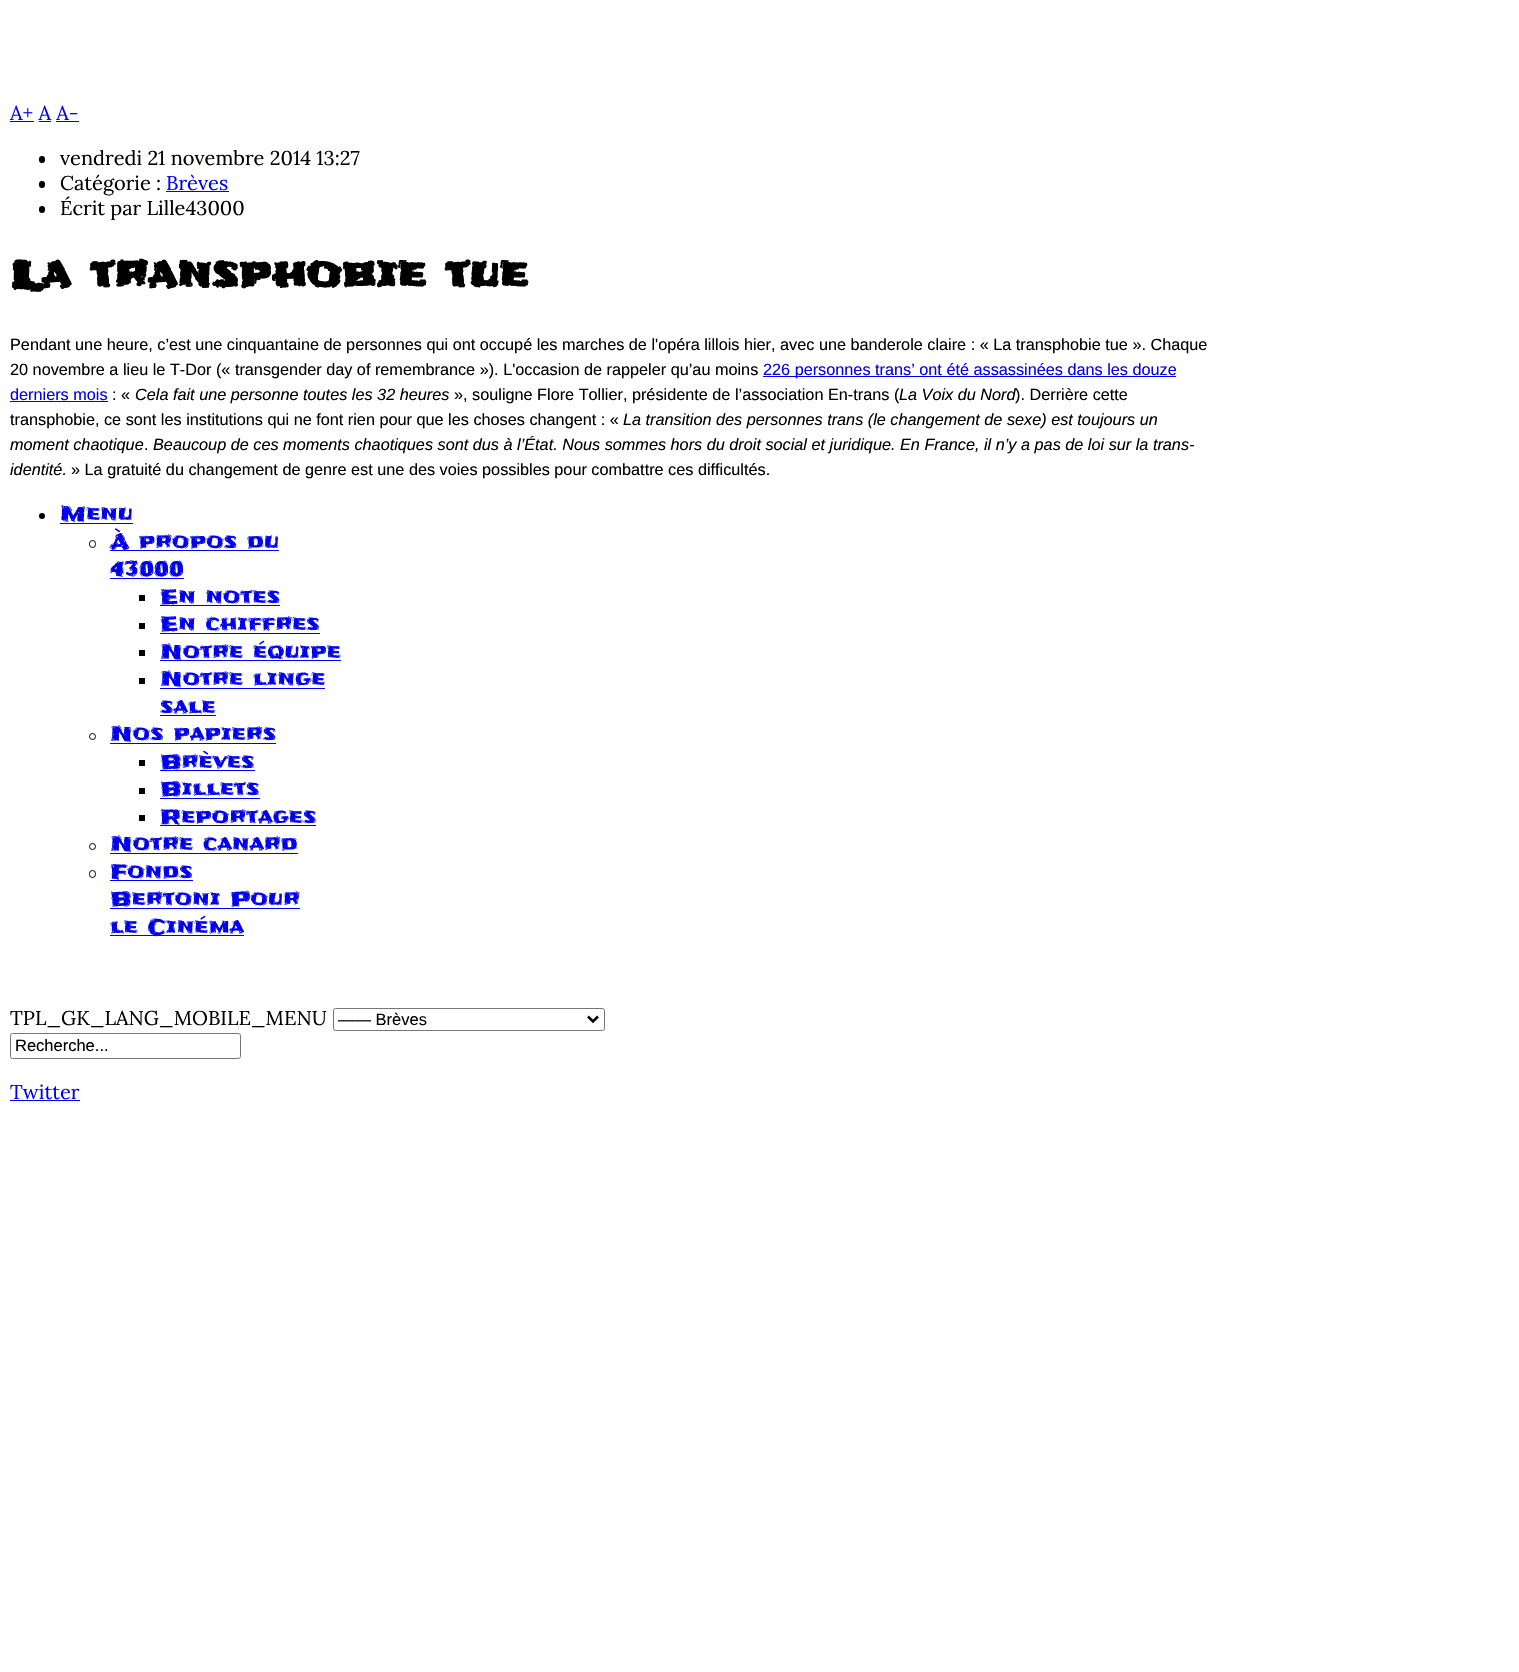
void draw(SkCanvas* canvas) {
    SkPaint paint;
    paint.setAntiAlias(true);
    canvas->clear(0xFFFFFFFF);
    SkFont font1(fontMgr->matchFamilyStyle("Lora", SkFontStyle::Normal()), 20);
    font1.setSubpixel(true);
    paint.setColor(0xFF0000EE);
    canvas->drawString("A+ A A-", 10, 120, font1, paint);
    canvas->drawRect(SkRect::MakeXYWH(10, 121, 24, 1), paint);
    canvas->drawRect(SkRect::MakeXYWH(39, 121, 12, 1), paint);
    canvas->drawRect(SkRect::MakeXYWH(56, 121, 23, 1), paint);
    paint.setColor(0xFF000000);
    canvas->drawRoundRect(SkRect::MakeXYWH(39, 156, 6, 7), 3, 3, paint);
    canvas->drawString("vendredi 21 novembre 2014 13:27", 60, 165, font1, paint);
    canvas->drawRoundRect(SkRect::MakeXYWH(39, 181, 6, 7), 3, 3, paint);
    canvas->drawString("Catégorie :", 60, 190, font1, paint);
    paint.setColor(0xFF0000EE);
    canvas->drawString("Brèves", 166, 190, font1, paint);
    canvas->drawRect(SkRect::MakeXYWH(166, 191, 63, 1), paint);
    paint.setColor(0xFF000000);
    canvas->drawRoundRect(SkRect::MakeXYWH(39, 206, 6, 7), 3, 3, paint);
    canvas->drawString("Écrit par Lille43000", 60, 215, font1, paint);
    SkFont font2(fontMgr->matchFamilyStyle("Frijole", SkFontStyle::Bold()), 40);
    font2.setSubpixel(true);
    canvas->drawString("La transphobie tue", 10, 289, font2, paint);
    SkFont font3(fontMgr->matchFamilyStyle("Liberation Sans", SkFontStyle::Normal()), 16.25f);
    font3.setSubpixel(true);
    canvas->drawString("Pendant une heure, c’est une cinquantaine de personnes qui ont occupé les marches de l'opéra lillois hier, avec une banderole claire : « La transphobie tue ». Chaque", 10, 350, font3, paint);
    canvas->drawString("20 novembre a lieu le T-Dor (« transgender day of remembrance »). L'occasion de rappeler qu’au moins", 10, 375, font3, paint);
    paint.setColor(0xFF0000EE);
    canvas->drawRect(SkRect::MakeXYWH(763, 376, 413, 1), paint);
    canvas->drawString("226 personnes trans’ ont été assassinées dans les douze", 763, 375, font3, paint);
    canvas->drawString("derniers mois", 10, 400, font3, paint);
    canvas->drawRect(SkRect::MakeXYWH(10, 401, 98, 1), paint);
    paint.setColor(0xFF000000);
    canvas->drawString(": «", 112, 400, font3, paint);
    SkFont font4(fontMgr->matchFamilyStyle("Liberation Sans", SkFontStyle::Italic()), 16.25f);
    font4.setSubpixel(true);
    canvas->drawString("Cela fait une personne toutes les 32 heures", 135, 400, font4, paint);
    canvas->drawString("», souligne Flore Tollier, présidente de l’association En-trans (", 454, 400, font3, paint);
    canvas->drawString("La Voix du Nord", 899, 400, font4, paint);
    canvas->drawString("). Derrière cette", 1015, 400, font3, paint);
    canvas->drawString("transphobie, ce sont les institutions qui ne font rien pour que les choses changent : «", 10, 425, font3, paint);
    canvas->drawString("La transition des personnes trans (le changement de sexe) est toujours un", 623, 425, font4, paint);
    canvas->drawString("moment chaotique", 10, 450, font4, paint);
    canvas->drawString(".", 144, 450, font3, paint);
    canvas->drawString("Beaucoup de ces moments chaotiques sont dus à l’État. Nous sommes hors du droit social et juridique. En France, il n’y a pas de loi sur la trans-", 153, 450, font4, paint);
    canvas->drawString("identité.", 10, 475, font4, paint);
    canvas->drawString("» La gratuité du changement de genre est une des voies possibles pour combattre ces difficultés.", 71, 475, font3, paint);
    canvas->drawCircle(42, 516, 3, paint);
    SkFont font5(fontMgr->matchFamilyStyle("Frijole", SkFontStyle::Normal()), 20);
    font5.setSubpixel(true);
    paint.setColor(0xFF0000EE);
    canvas->drawString("Menu", 60, 521, font5, paint);
    canvas->drawRect(SkRect::MakeXYWH(60, 523, 73, 1), paint);
    paint.setStyle(SkPaint::kStroke_Style);
    paint.setStrokeWidth(1);
    paint.setColor(0xFF000000);
    canvas->drawRoundRect(SkRect::MakeXYWH(89.5f, 540.5f, 6, 7), 3, 3, paint);
    paint.setStyle(SkPaint::kFill_Style);
    paint.setColor(0xFF0000EE);
    canvas->drawRect(SkRect::MakeXYWH(110, 550, 169, 1), paint);
    canvas->drawString("À propos du", 110, 549, font5, paint);
    canvas->drawString("43000", 110, 576, font5, paint);
    canvas->drawRect(SkRect::MakeXYWH(110, 578, 74, 1), paint);
    paint.setColor(0xFF000000);
    canvas->drawRect(SkRect::MakeXYWH(139, 595, 6, 6), paint);
    paint.setColor(0xFF0000EE);
    canvas->drawRect(SkRect::MakeXYWH(160, 605, 120, 1), paint);
    canvas->drawString("En notes", 160, 604, font5, paint);
    paint.setColor(0xFF000000);
    canvas->drawRect(SkRect::MakeXYWH(139, 623, 6, 6), paint);
    paint.setColor(0xFF0000EE);
    canvas->drawString("En chiffres", 160, 631, font5, paint);
    canvas->drawRect(SkRect::MakeXYWH(160, 633, 160, 1), paint);
    paint.setColor(0xFF000000);
    canvas->drawRect(SkRect::MakeXYWH(139, 650, 6, 6), paint);
    paint.setColor(0xFF0000EE);
    canvas->drawRect(SkRect::MakeXYWH(160, 660, 181, 1), paint);
    canvas->drawString("Notre équipe", 160, 659, font5, paint);
    paint.setColor(0xFF000000);
    canvas->drawRect(SkRect::MakeXYWH(139, 678, 6, 6), paint);
    paint.setColor(0xFF0000EE);
    canvas->drawString("Notre linge", 160, 686, font5, paint);
    canvas->drawRect(SkRect::MakeXYWH(160, 688, 165, 1), paint);
    canvas->drawString("sale", 160, 714, font5, paint);
    canvas->drawRect(SkRect::MakeXYWH(160, 715, 56, 1), paint);
    paint.setStyle(SkPaint::kStroke_Style);
    paint.setColor(0xFF000000);
    canvas->drawCircle(92.5f, 736.5f, 3, paint);
    paint.setStyle(SkPaint::kFill_Style);
    paint.setColor(0xFF0000EE);
    canvas->drawString("Nos papiers", 110, 741, font5, paint);
    canvas->drawRect(SkRect::MakeXYWH(110, 743, 166, 1), paint);
    paint.setColor(0xFF000000);
    canvas->drawRect(SkRect::MakeXYWH(139, 760, 6, 6), paint);
    paint.setColor(0xFF0000EE);
    canvas->drawRect(SkRect::MakeXYWH(160, 770, 95, 1), paint);
    canvas->drawString("Brèves", 160, 769, font5, paint);
    paint.setColor(0xFF000000);
    canvas->drawRect(SkRect::MakeXYWH(139, 788, 6, 6), paint);
    paint.setColor(0xFF0000EE);
    canvas->drawString("Billets", 160, 796, font5, paint);
    canvas->drawRect(SkRect::MakeXYWH(160, 798, 100, 1), paint);
    paint.setColor(0xFF000000);
    canvas->drawRect(SkRect::MakeXYWH(139, 815, 6, 6), paint);
    paint.setColor(0xFF0000EE);
    canvas->drawString("Reportages", 160, 824, font5, paint);
    canvas->drawRect(SkRect::MakeXYWH(160, 825, 156, 1), paint);
    paint.setStyle(SkPaint::kStroke_Style);
    paint.setColor(0xFF000000);
    canvas->drawCircle(92.5f, 846.5f, 3, paint);
    paint.setStyle(SkPaint::kFill_Style);
    paint.setColor(0xFF0000EE);
    canvas->drawString("Notre canard", 110, 851, font5, paint);
    canvas->drawRect(SkRect::MakeXYWH(110, 853, 188, 1), paint);
    paint.setStyle(SkPaint::kStroke_Style);
    paint.setColor(0xFF000000);
    canvas->drawRoundRect(SkRect::MakeXYWH(89.5f, 870.5f, 6, 7), 3, 3, paint);
    paint.setStyle(SkPaint::kFill_Style);
    paint.setColor(0xFF0000EE);
    canvas->drawString("Fonds", 110, 879, font5, paint);
    canvas->drawRect(SkRect::MakeXYWH(110, 880, 83, 1), paint);
    canvas->drawString("Bertoni Pour", 110, 906, font5, paint);
    canvas->drawRect(SkRect::MakeXYWH(110, 908, 190, 1), paint);
    canvas->drawRect(SkRect::MakeXYWH(110, 935, 134, 1), paint);
    canvas->drawString("le Cinéma", 110, 934, font5, paint);
    paint.setColor(0xFF000000);
    canvas->drawString("TPL_GK_LANG_MOBILE_MENU", 10, 1025, font1, paint);
    paint.setStyle(SkPaint::kStroke_Style);
    paint.setColor(0xFF767676);
    canvas->drawRoundRect(SkRect::MakeXYWH(333.5f, 1008.5f, 271, 22), 2, 2, paint);
    paint.setStrokeWidth(2.5f);
    paint.setColor(0xFF000000);
    canvas->drawPath(SkPathBuilder().moveTo(588, 1016.5f).lineTo(593, 1021.5f).lineTo(598, 1016.5f).detach(), paint);
    SkFont font6(fontMgr->matchFamilyStyle("Liberation Sans", SkFontStyle::Normal()), 16.5f);
    font6.setSubpixel(true);
    paint.setStyle(SkPaint::kFill_Style);
    canvas->drawString("—— Brèves", 338, 1025, font6, paint);
    paint.setStyle(SkPaint::kStroke_Style);
    paint.setStrokeWidth(1);
    paint.setColor(0xFF767676);
    canvas->drawRoundRect(SkRect::MakeXYWH(10.5f, 1033.5f, 230, 25), 2, 2, paint);
    paint.setStyle(SkPaint::kFill_Style);
    paint.setColor(0xFF000000);
    canvas->drawString("Recherche...", 15, 1051, font6, paint);
    paint.setColor(0xFF0000EE);
    canvas->drawString("Twitter", 10, 1099, font1, paint);
    canvas->drawRect(SkRect::MakeXYWH(10, 1100, 70, 1), paint);
}
